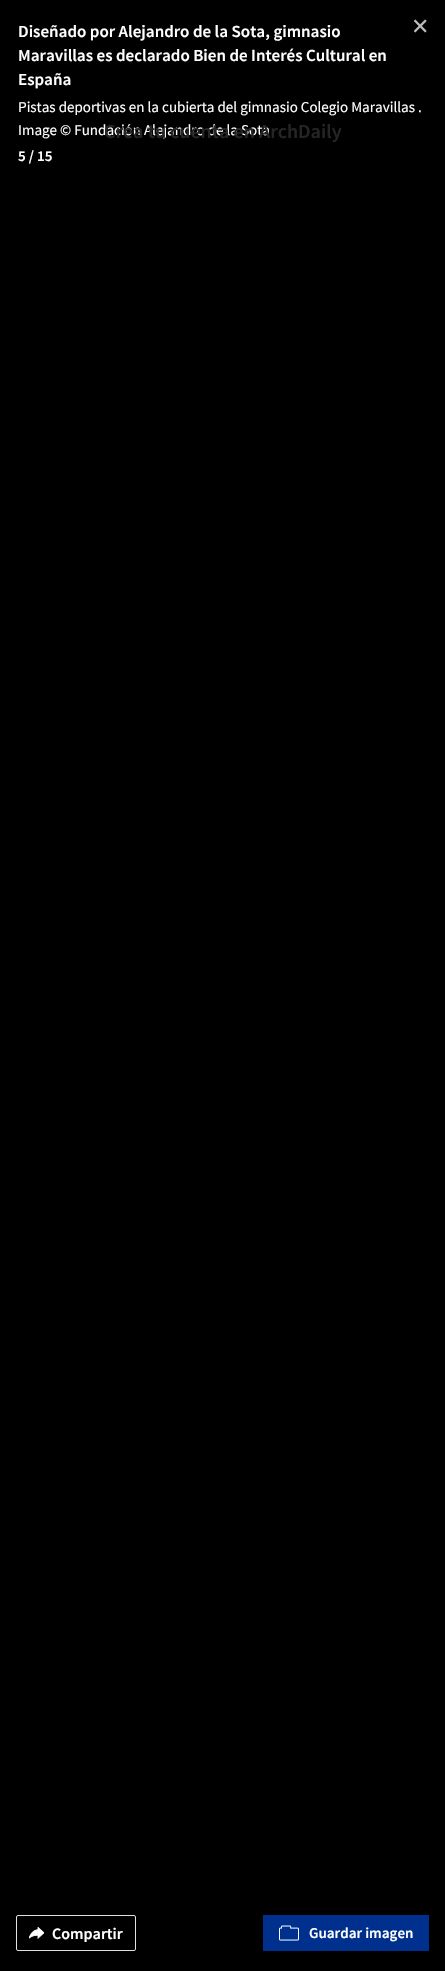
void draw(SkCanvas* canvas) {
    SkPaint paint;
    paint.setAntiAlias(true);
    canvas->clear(0xFF000000);
    SkFont font1(fontMgr->matchFamilyStyle("DejaVu Sans", SkFontStyle::Normal()), 22);
    font1.setSubpixel(true);
    paint.setColor(0xFFBBBBBB);
    canvas->drawString("✕", 411, 34, font1, paint);
    SkFont font2(fontMgr->matchFamilyStyle("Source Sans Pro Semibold", SkFontStyle(600, SkFontStyle::kNormal_Width, SkFontStyle::kUpright_Slant)), 17);
    font2.setSubpixel(true);
    paint.setColor(0xFFFFFFFF);
    canvas->drawString("Diseñado por Alejandro de la Sota, gimnasio", 18, 37, font2, paint);
    canvas->drawString("Maravillas es declarado Bien de Interés Cultural en", 18, 61, font2, paint);
    canvas->drawString("España", 18, 85, font2, paint);
    SkFont font3(fontMgr->matchFamilyStyle("Source Sans Pro", SkFontStyle::Normal()), 15);
    font3.setSubpixel(true);
    canvas->drawString("Pistas deportivas en la cubierta del gimnasio Colegio Maravillas .", 18, 112, font3, paint);
    canvas->drawString("Image © Fundación Alejandro de la Sota", 18, 135, font3, paint);
    SkFont font4(fontMgr->matchFamilyStyle("Source Sans Pro Semibold", SkFontStyle(600, SkFontStyle::kNormal_Width, SkFontStyle::kUpright_Slant)), 15);
    font4.setSubpixel(true);
    canvas->drawString("5 / 15", 18, 161, font4, paint);
    paint.setStyle(SkPaint::kStroke_Style);
    paint.setStrokeWidth(1);
    paint.setColor(0xFFE1E1E1);
    canvas->drawRoundRect(SkRect::MakeXYWH(16.5f, 1915.5f, 119, 35), 1.5f, 1.5f, paint);
    canvas->drawImageRect(SkImages::DeferredFromEncodedData(SkData::MakeFromFileName("img1.png")), SkRect::MakeXYWH(29, 1927, 15, 12), SkSamplingOptions());
    SkFont font5(fontMgr->matchFamilyStyle("Source Sans Pro Semibold", SkFontStyle(600, SkFontStyle::kNormal_Width, SkFontStyle::kUpright_Slant)), 16);
    font5.setSubpixel(true);
    paint.setStyle(SkPaint::kFill_Style);
    paint.setColor(0xFFFFFFFF);
    canvas->drawString("Compartir", 52, 1939, font5, paint);
    paint.setColor(0xFF00308E);
    canvas->drawRect(SkRect::MakeXYWH(263, 1915, 166, 36), paint);
    canvas->drawImageRect(SkImages::DeferredFromEncodedData(SkData::MakeFromFileName("img2.png")), SkRect::MakeXYWH(279, 1925, 20, 16), SkSamplingOptions());
    paint.setColor(0xFFFFFFFF);
    canvas->drawString("Guardar imagen", 309, 1938, font4, paint);
    SkFont font6(fontMgr->matchFamilyStyle("Source Sans Pro Semibold", SkFontStyle(600, SkFontStyle::kNormal_Width, SkFontStyle::kUpright_Slant)), 20);
    font6.setSubpixel(true);
    paint.setColor(0xFF252525);
    canvas->drawString("Crea tu cuenta en ArchDaily", 104, 138, font6, paint);
}
